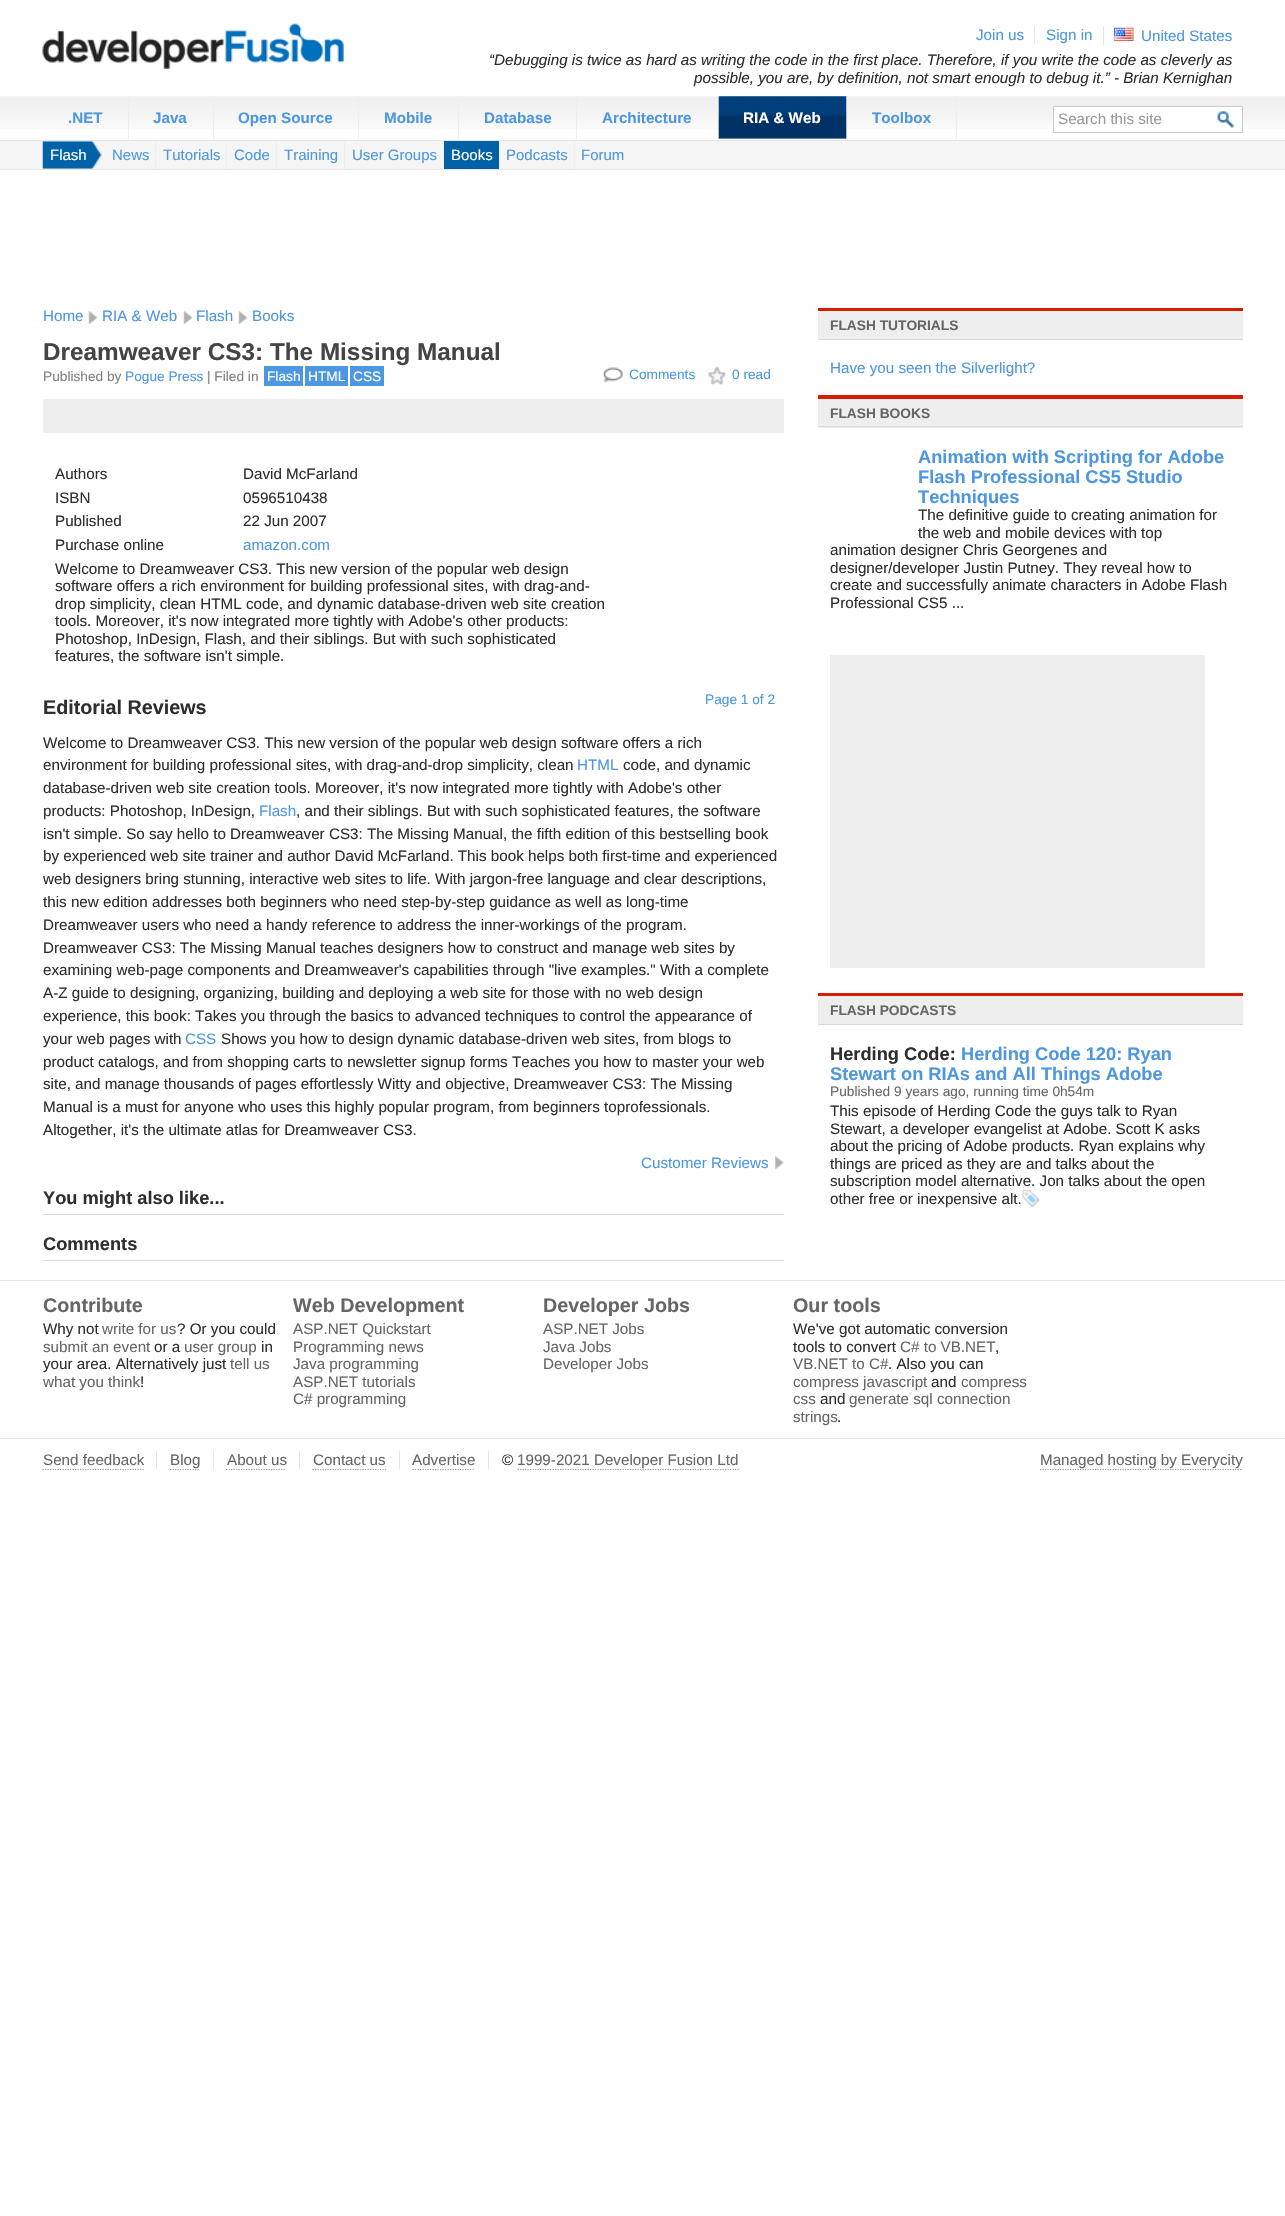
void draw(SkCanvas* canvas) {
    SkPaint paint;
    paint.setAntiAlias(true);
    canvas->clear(0xFFFFFFFF);
    canvas->drawImageRect(SkImages::DeferredFromEncodedData(SkData::MakeFromFileName("img1.png")), SkRect::MakeXYWH(42, 23, 302, 46), SkSamplingOptions());
    SkFont font1(fontMgr->matchFamilyStyle("Liberation Sans", SkFontStyle::Normal()), 15.2f);
    font1.setSubpixel(true);
    paint.setColor(0xFF4D97E0);
    canvas->drawString("Join us", 976, 40, font1, paint);
    paint.setColor(0xFFE5E5E5);
    canvas->drawRect(SkRect::MakeXYWH(1034, 26, 1, 18), paint);
    paint.setColor(0xFF4D97E0);
    canvas->drawString("Sign in", 1046, 40, font1, paint);
    paint.setColor(0xFFE5E5E5);
    canvas->drawRect(SkRect::MakeXYWH(1103, 26, 1, 19), paint);
    canvas->drawImageRect(SkImages::DeferredFromEncodedData(SkData::MakeFromFileName("img2.png")), SkRect::MakeXYWH(1113, 27, 21, 15), SkSamplingOptions());
    paint.setColor(0xFF4D97E0);
    canvas->drawString("United States", 1141, 41, font1, paint);
    SkFont font2(fontMgr->matchFamilyStyle("Liberation Sans", SkFontStyle::Italic()), 15.2f);
    font2.setSubpixel(true);
    paint.setColor(0xFF2E2E2E);
    canvas->drawString("“Debugging is twice as hard as writing the code in the first place. Therefore, if you write the code as cleverly as", 489, 65, font2, paint);
    canvas->drawString("possible, you are, by definition, not smart enough to debug it.” - Brian Kernighan", 694, 83, font2, paint);
    canvas->drawImageRect(SkImages::DeferredFromEncodedData(SkData::MakeFromFileName("img3.png")), SkRect::MakeXYWH(0, 96, 1285, 33), SkSamplingOptions());
    paint.setColor(0xFFE5E5E5);
    canvas->drawRect(SkRect::MakeXYWH(0, 140, 1285, 1), paint);
    paint.setColor(0xFFEEEEEE);
    canvas->drawRect(SkRect::MakeXYWH(128, 96, 1, 43), paint);
    SkFont font3(fontMgr->matchFamilyStyle("Liberation Sans", SkFontStyle::Bold()), 15.2f);
    font3.setSubpixel(true);
    paint.setColor(0xFF4D97E0);
    canvas->drawString(".NET", 68, 123, font3, paint);
    paint.setColor(0xFFEEEEEE);
    canvas->drawRect(SkRect::MakeXYWH(213, 96, 1, 43), paint);
    paint.setColor(0xFF4D97E0);
    canvas->drawString("Java", 153, 123, font3, paint);
    paint.setColor(0xFFEEEEEE);
    canvas->drawRect(SkRect::MakeXYWH(358, 96, 1, 43), paint);
    paint.setColor(0xFF4D97E0);
    canvas->drawString("Open Source", 238, 123, font3, paint);
    paint.setColor(0xFFEEEEEE);
    canvas->drawRect(SkRect::MakeXYWH(458, 96, 1, 43), paint);
    paint.setColor(0xFF4D97E0);
    canvas->drawString("Mobile", 384, 123, font3, paint);
    paint.setColor(0xFFEEEEEE);
    canvas->drawRect(SkRect::MakeXYWH(576, 96, 1, 43), paint);
    paint.setColor(0xFF4D97E0);
    canvas->drawString("Database", 484, 123, font3, paint);
    paint.setColor(0xFFEEEEEE);
    canvas->drawRect(SkRect::MakeXYWH(718, 96, 1, 43), paint);
    paint.setColor(0xFF4D97E0);
    canvas->drawString("Architecture", 602, 123, font3, paint);
    paint.setColor(0xFFEEEEEE);
    canvas->drawRect(SkRect::MakeXYWH(846, 96, 1, 43), paint);
    canvas->drawImageRect(SkImages::DeferredFromEncodedData(SkData::MakeFromFileName("img4.png")), SkRect::MakeXYWH(718, 96, 129, 43), SkSamplingOptions());
    paint.setColor(0xFFFFFFFF);
    canvas->drawString("RIA & Web", 743, 123, font3, paint);
    paint.setColor(0xFFEEEEEE);
    canvas->drawRect(SkRect::MakeXYWH(956, 96, 1, 43), paint);
    paint.setColor(0xFF4D97E0);
    canvas->drawString("Toolbox", 872, 123, font3, paint);
    paint.setColor(0xFFFFFFFF);
    canvas->drawRect(SkRect::MakeXYWH(1054, 107, 188, 22), paint);
    paint.setStyle(SkPaint::kStroke_Style);
    paint.setStrokeWidth(1);
    paint.setColor(0xFFCCCCCC);
    canvas->drawRect(SkRect::MakeXYWH(1053.5f, 106.5f, 189, 26), paint);
    paint.setStyle(SkPaint::kFill_Style);
    paint.setColor(0xFF999999);
    canvas->drawString("Search this site", 1058, 124, font1, paint);
    canvas->drawImageRect(SkImages::DeferredFromEncodedData(SkData::MakeFromFileName("img5.png")), SkRect::MakeXYWH(1217, 111, 17, 17), SkSamplingOptions());
    paint.setColor(0xFFF5F5F5);
    canvas->drawRect(SkRect::MakeXYWH(0, 141, 1285, 28), paint);
    paint.setColor(0xFFE5E5E5);
    canvas->drawRect(SkRect::MakeXYWH(0, 169, 1285, 1), paint);
    canvas->drawImageRect(SkImages::DeferredFromEncodedData(SkData::MakeFromFileName("img6.png")), SkRect::MakeXYWH(42, 141, 60, 28), SkSamplingOptions());
    SkFont font4(fontMgr->matchFamilyStyle("Liberation Sans", SkFontStyle::Normal()), 15);
    font4.setSubpixel(true);
    paint.setColor(0xFFFFFFFF);
    canvas->drawString("Flash", 50, 160, font4, paint);
    paint.setColor(0xFFEEEEEE);
    canvas->drawRect(SkRect::MakeXYWH(155, 141, 1, 28), paint);
    paint.setColor(0xFF4D97E0);
    canvas->drawString("News", 112, 160, font4, paint);
    paint.setColor(0xFFEEEEEE);
    canvas->drawRect(SkRect::MakeXYWH(226, 141, 1, 28), paint);
    paint.setColor(0xFF4D97E0);
    canvas->drawString("Tutorials", 163, 160, font4, paint);
    paint.setColor(0xFFEEEEEE);
    canvas->drawRect(SkRect::MakeXYWH(276, 141, 1, 28), paint);
    paint.setColor(0xFF4D97E0);
    canvas->drawString("Code", 234, 160, font4, paint);
    paint.setColor(0xFFEEEEEE);
    canvas->drawRect(SkRect::MakeXYWH(344, 141, 1, 28), paint);
    paint.setColor(0xFF4D97E0);
    canvas->drawString("Training", 284, 160, font4, paint);
    paint.setColor(0xFFEEEEEE);
    canvas->drawRect(SkRect::MakeXYWH(443, 141, 1, 28), paint);
    paint.setColor(0xFF4D97E0);
    canvas->drawString("User Groups", 352, 160, font4, paint);
    paint.setColor(0xFF0061A6);
    canvas->drawRect(SkRect::MakeXYWH(444, 141, 55, 28), paint);
    paint.setColor(0xFFEEEEEE);
    canvas->drawRect(SkRect::MakeXYWH(499, 141, 1, 28), paint);
    paint.setColor(0xFFFFFFFF);
    canvas->drawString("Books", 451, 160, font4, paint);
    paint.setColor(0xFFEEEEEE);
    canvas->drawRect(SkRect::MakeXYWH(574, 141, 1, 28), paint);
    paint.setColor(0xFF4D97E0);
    canvas->drawString("Podcasts", 506, 160, font4, paint);
    canvas->drawString("Forum", 581, 160, font4, paint);
    canvas->drawString("Home", 43, 321, font1, paint);
    canvas->drawImageRect(SkImages::DeferredFromEncodedData(SkData::MakeFromFileName("img7.png")), SkRect::MakeXYWH(88, 311, 10, 14), SkSamplingOptions());
    canvas->drawString("RIA & Web", 102, 321, font1, paint);
    canvas->drawImageRect(SkImages::DeferredFromEncodedData(SkData::MakeFromFileName("img8.png")), SkRect::MakeXYWH(183, 311, 10, 14), SkSamplingOptions());
    canvas->drawString("Flash", 196, 321, font1, paint);
    canvas->drawImageRect(SkImages::DeferredFromEncodedData(SkData::MakeFromFileName("img8.png")), SkRect::MakeXYWH(238, 311, 10, 14), SkSamplingOptions());
    canvas->drawString("Books", 252, 321, font1, paint);
    SkFont font5(fontMgr->matchFamilyStyle("Liberation Sans", SkFontStyle::Bold()), 24.3f);
    font5.setSubpixel(true);
    paint.setColor(0xFF444444);
    canvas->drawString("Dreamweaver CS3: The Missing Manual", 43, 360, font5, paint);
    SkFont font6(fontMgr->matchFamilyStyle("Liberation Sans", SkFontStyle::Normal()), 13.7f);
    font6.setSubpixel(true);
    paint.setColor(0xFF808080);
    canvas->drawString("Published by", 43, 381, font6, paint);
    paint.setColor(0xFF4D97E0);
    canvas->drawString("Pogue Press", 125, 381, font6, paint);
    paint.setColor(0xFF808080);
    canvas->drawString("| Filed in", 207, 381, font6, paint);
    paint.setColor(0xFF4D97E0);
    canvas->drawRect(SkRect::MakeXYWH(264, 366, 39, 20), paint);
    paint.setColor(0xFFFFFFFF);
    canvas->drawString("Flash", 267, 381, font6, paint);
    paint.setColor(0xFF4D97E0);
    canvas->drawRect(SkRect::MakeXYWH(305, 366, 43, 20), paint);
    paint.setColor(0xFFFFFFFF);
    canvas->drawString("HTML", 308, 381, font6, paint);
    paint.setColor(0xFF4D97E0);
    canvas->drawRect(SkRect::MakeXYWH(350, 366, 34, 20), paint);
    paint.setColor(0xFFFFFFFF);
    canvas->drawString("CSS", 353, 381, font6, paint);
    canvas->drawImageRect(SkImages::DeferredFromEncodedData(SkData::MakeFromFileName("img9.png")), SkRect::MakeXYWH(603, 367, 20, 16), SkSamplingOptions());
    paint.setColor(0xFF4D97E0);
    canvas->drawString("Comments", 629, 379, font6, paint);
    canvas->drawImageRect(SkImages::DeferredFromEncodedData(SkData::MakeFromFileName("img10.png")), SkRect::MakeXYWH(707, 366, 20, 19), SkSamplingOptions());
    canvas->drawString("0 read", 732, 379, font6, paint);
    paint.setColor(0xFFEEEEEE);
    canvas->drawRect(SkRect::MakeXYWH(43, 399, 741, 34), paint);
    paint.setColor(0xFF2E2E2E);
    canvas->drawString("Authors", 55, 479, font1, paint);
    canvas->drawString("David McFarland", 243, 479, font1, paint);
    canvas->drawString("ISBN", 55, 503, font1, paint);
    canvas->drawString("0596510438", 243, 503, font1, paint);
    canvas->drawString("Published", 55, 526, font1, paint);
    canvas->drawString("22 Jun 2007", 243, 526, font1, paint);
    canvas->drawString("Purchase online", 55, 550, font1, paint);
    paint.setColor(0xFF4D97E0);
    canvas->drawString("amazon.com", 243, 550, font1, paint);
    paint.setColor(0xFF2E2E2E);
    canvas->drawString("Welcome to Dreamweaver CS3. This new version of the popular web design", 55, 574, font1, paint);
    canvas->drawString("software offers a rich environment for building professional sites, with drag-and-", 55, 591, font1, paint);
    canvas->drawString("drop simplicity, clean HTML code, and dynamic database-driven web site creation", 55, 609, font1, paint);
    canvas->drawString("tools. Moreover, it's now integrated more tightly with Adobe's other products:", 55, 626, font1, paint);
    canvas->drawString("Photoshop, InDesign, Flash, and their siblings. But with such sophisticated", 55, 644, font1, paint);
    canvas->drawString("features, the software isn't simple.", 55, 661, font1, paint);
    SkFont font7(fontMgr->matchFamilyStyle("Liberation Sans", SkFontStyle::Bold()), 19.75f);
    font7.setSubpixel(true);
    canvas->drawString("Editorial Reviews", 43, 714, font7, paint);
    paint.setColor(0xFF4D97E0);
    canvas->drawString("Page 1 of 2", 705, 704, font6, paint);
    paint.setColor(0xFF2E2E2E);
    canvas->drawString("Welcome to Dreamweaver CS3. This new version of the popular web design software offers a rich", 43, 748, font1, paint);
    canvas->drawString("environment for building professional sites, with drag-and-drop simplicity, clean", 43, 770, font1, paint);
    paint.setColor(0xFF4D97E0);
    canvas->drawString("HTML", 577, 770, font1, paint);
    paint.setColor(0xFF2E2E2E);
    canvas->drawString("code, and dynamic", 623, 770, font1, paint);
    canvas->drawString("database-driven web site creation tools. Moreover, it's now integrated more tightly with Adobe's other", 43, 793, font1, paint);
    canvas->drawString("products: Photoshop, InDesign,", 43, 816, font1, paint);
    paint.setColor(0xFF4D97E0);
    canvas->drawString("Flash", 259, 816, font1, paint);
    paint.setColor(0xFF2E2E2E);
    canvas->drawString(", and their siblings. But with such sophisticated features, the software", 296, 816, font1, paint);
    canvas->drawString("isn't simple. So say hello to Dreamweaver CS3: The Missing Manual, the fifth edition of this bestselling book", 43, 839, font1, paint);
    canvas->drawString("by experienced web site trainer and author David McFarland. This book helps both first-time and experienced", 43, 861, font1, paint);
    canvas->drawString("web designers bring stunning, interactive web sites to life. With jargon-free language and clear descriptions,", 43, 884, font1, paint);
    canvas->drawString("this new edition addresses both beginners who need step-by-step guidance as well as long-time", 43, 907, font1, paint);
    canvas->drawString("Dreamweaver users who need a handy reference to address the inner-workings of the program.", 43, 930, font1, paint);
    canvas->drawString("Dreamweaver CS3: The Missing Manual teaches designers how to construct and manage web sites by", 43, 953, font1, paint);
    canvas->drawString("examining web-page components and Dreamweaver's capabilities through \"live examples.\" With a complete", 43, 975, font1, paint);
    canvas->drawString("A-Z guide to designing, organizing, building and deploying a web site for those with no web design", 43, 998, font1, paint);
    canvas->drawString("experience, this book: Takes you through the basics to advanced techniques to control the appearance of", 43, 1021, font1, paint);
    canvas->drawString("your web pages with", 43, 1044, font1, paint);
    paint.setColor(0xFF4D97E0);
    canvas->drawString("CSS", 185, 1044, font1, paint);
    paint.setColor(0xFF2E2E2E);
    canvas->drawString("Shows you how to design dynamic database-driven web sites, from blogs to", 221, 1044, font1, paint);
    canvas->drawString("product catalogs, and from shopping carts to newsletter signup forms Teaches you how to master your web", 43, 1067, font1, paint);
    canvas->drawString("site, and manage thousands of pages effortlessly Witty and objective, Dreamweaver CS3: The Missing", 43, 1089, font1, paint);
    canvas->drawString("Manual is a must for anyone who uses this highly popular program, from beginners toprofessionals.", 43, 1112, font1, paint);
    canvas->drawString("Altogether, it's the ultimate atlas for Dreamweaver CS3.", 43, 1135, font1, paint);
    canvas->drawImageRect(SkImages::DeferredFromEncodedData(SkData::MakeFromFileName("img11.png")), SkRect::MakeXYWH(775, 1156, 9, 14), SkSamplingOptions());
    paint.setColor(0xFF4D97E0);
    canvas->drawString("Customer Reviews", 641, 1168, font1, paint);
    paint.setColor(0xFFD8D8D8);
    canvas->drawRect(SkRect::MakeXYWH(43, 1214, 741, 1), paint);
    SkFont font8(fontMgr->matchFamilyStyle("Liberation Sans", SkFontStyle::Bold()), 18.25f);
    font8.setSubpixel(true);
    paint.setColor(0xFF2E2E2E);
    canvas->drawString("You might also like...", 43, 1204, font8, paint);
    paint.setColor(0xFFD8D8D8);
    canvas->drawRect(SkRect::MakeXYWH(43, 1260, 741, 1), paint);
    paint.setColor(0xFF2E2E2E);
    canvas->drawString("Comments", 43, 1250, font8, paint);
    paint.setColor(0xFFD61D00);
    canvas->drawRect(SkRect::MakeXYWH(818, 308, 425, 3), paint);
    paint.setColor(0xFFEEEEEE);
    canvas->drawRect(SkRect::MakeXYWH(818, 311, 425, 28), paint);
    paint.setColor(0xFFD8D8D8);
    canvas->drawRect(SkRect::MakeXYWH(818, 339, 425, 1), paint);
    SkFont font9(fontMgr->matchFamilyStyle("Liberation Sans", SkFontStyle::Bold()), 13.75f);
    font9.setSubpixel(true);
    paint.setColor(0xFF666666);
    canvas->drawString("FLASH TUTORIALS", 830, 330, font9, paint);
    paint.setColor(0xFF4D97E0);
    canvas->drawString("Have you seen the Silverlight?", 830, 373, font1, paint);
    paint.setColor(0xFFD61D00);
    canvas->drawRect(SkRect::MakeXYWH(818, 395, 425, 4), paint);
    paint.setColor(0xFFEEEEEE);
    canvas->drawRect(SkRect::MakeXYWH(818, 399, 425, 29), paint);
    paint.setColor(0xFFD8D8D8);
    canvas->drawRect(SkRect::MakeXYWH(818, 426, 425, 1), paint);
    paint.setColor(0xFF666666);
    canvas->drawString("FLASH BOOKS", 830, 418, font9, paint);
    paint.setColor(0xFF4D97E0);
    canvas->drawString("Animation with Scripting for Adobe", 918, 463, font8, paint);
    canvas->drawString("Flash Professional CS5 Studio", 918, 483, font8, paint);
    canvas->drawString("Techniques", 918, 503, font8, paint);
    paint.setColor(0xFF2E2E2E);
    canvas->drawString("The definitive guide to creating animation for", 918, 520, font1, paint);
    canvas->drawString("the web and mobile devices with top", 918, 538, font1, paint);
    canvas->drawString("animation designer Chris Georgenes and", 830, 555, font1, paint);
    canvas->drawString("designer/developer Justin Putney. They reveal how to", 830, 573, font1, paint);
    canvas->drawString("create and successfully animate characters in Adobe Flash", 830, 590, font1, paint);
    canvas->drawString("Professional CS5 ...", 830, 608, font1, paint);
    paint.setColor(0xFFEEEEEE);
    canvas->drawRect(SkRect::MakeXYWH(830, 655, 375, 313), paint);
    paint.setColor(0xFFD61D00);
    canvas->drawRect(SkRect::MakeXYWH(818, 993, 425, 3), paint);
    paint.setColor(0xFFEEEEEE);
    canvas->drawRect(SkRect::MakeXYWH(818, 996, 425, 28), paint);
    paint.setColor(0xFFD8D8D8);
    canvas->drawRect(SkRect::MakeXYWH(818, 1024, 425, 1), paint);
    paint.setColor(0xFF666666);
    canvas->drawString("FLASH PODCASTS", 830, 1015, font9, paint);
    paint.setColor(0xFF2E2E2E);
    canvas->drawString("Herding Code:", 830, 1060, font8, paint);
    paint.setColor(0xFF4D97E0);
    canvas->drawString("Herding Code 120: Ryan", 961, 1060, font8, paint);
    canvas->drawString("Stewart on RIAs and All Things Adobe", 830, 1080, font8, paint);
    paint.setColor(0xFF666666);
    canvas->drawString("Published 9 years ago, running time 0h54m", 830, 1096, font6, paint);
    paint.setColor(0xFF2E2E2E);
    canvas->drawString("This episode of Herding Code the guys talk to Ryan", 830, 1116, font1, paint);
    canvas->drawString("Stewart, a developer evangelist at Adobe. Scott K asks", 830, 1134, font1, paint);
    canvas->drawString("about the pricing of Adobe products. Ryan explains why", 830, 1151, font1, paint);
    canvas->drawString("things are priced as they are and talks about the", 830, 1169, font1, paint);
    canvas->drawString("subscription model alternative. Jon talks about the open", 830, 1186, font1, paint);
    canvas->drawString("other free or inexpensive alt.", 830, 1204, font1, paint);
    canvas->drawImageRect(SkImages::DeferredFromEncodedData(SkData::MakeFromFileName("img12.png")), SkRect::MakeXYWH(1022, 1190, 18, 18), SkSamplingOptions());
    paint.setColor(0xFFE5E5E5);
    canvas->drawRect(SkRect::MakeXYWH(0, 1280, 1285, 1), paint);
    paint.setColor(0xFF666666);
    canvas->drawString("Contribute", 43, 1312, font7, paint);
    paint.setColor(0xFF2E2E2E);
    canvas->drawString("Why not", 43, 1334, font1, paint);
    paint.setColor(0xFF666666);
    canvas->drawString("write for us", 102, 1334, font1, paint);
    paint.setColor(0xFF2E2E2E);
    canvas->drawString("? Or you could", 177, 1334, font1, paint);
    paint.setColor(0xFF666666);
    canvas->drawString("submit an event", 43, 1352, font1, paint);
    paint.setColor(0xFF2E2E2E);
    canvas->drawString("or a", 154, 1352, font1, paint);
    paint.setColor(0xFF666666);
    canvas->drawString("user group", 184, 1352, font1, paint);
    paint.setColor(0xFF2E2E2E);
    canvas->drawString("in", 261, 1352, font1, paint);
    canvas->drawString("your area. Alternatively just", 43, 1369, font1, paint);
    paint.setColor(0xFF666666);
    canvas->drawString("tell us", 230, 1369, font1, paint);
    canvas->drawString("what you think", 43, 1387, font1, paint);
    paint.setColor(0xFF2E2E2E);
    canvas->drawString("!", 140, 1387, font1, paint);
    paint.setColor(0xFF666666);
    canvas->drawString("Web Development", 293, 1312, font7, paint);
    canvas->drawString("ASP.NET Quickstart", 293, 1334, font1, paint);
    canvas->drawString("Programming news", 293, 1352, font1, paint);
    canvas->drawString("Java programming", 293, 1369, font1, paint);
    canvas->drawString("ASP.NET tutorials", 293, 1387, font1, paint);
    canvas->drawString("C# programming", 293, 1404, font1, paint);
    canvas->drawString("Developer Jobs", 543, 1312, font7, paint);
    canvas->drawString("ASP.NET Jobs", 543, 1334, font1, paint);
    canvas->drawString("Java Jobs", 543, 1352, font1, paint);
    canvas->drawString("Developer Jobs", 543, 1369, font1, paint);
    canvas->drawString("Our tools", 793, 1312, font7, paint);
    paint.setColor(0xFF2E2E2E);
    canvas->drawString("We've got automatic conversion", 793, 1334, font1, paint);
    canvas->drawString("tools to convert", 793, 1352, font1, paint);
    paint.setColor(0xFF666666);
    canvas->drawString("C# to VB.NET", 900, 1352, font1, paint);
    paint.setColor(0xFF2E2E2E);
    canvas->drawString(",", 995, 1352, font1, paint);
    paint.setColor(0xFF666666);
    canvas->drawString("VB.NET to C#", 793, 1369, font1, paint);
    paint.setColor(0xFF2E2E2E);
    canvas->drawString(". Also you can", 888, 1369, font1, paint);
    paint.setColor(0xFF666666);
    canvas->drawString("compress javascript", 793, 1387, font1, paint);
    paint.setColor(0xFF2E2E2E);
    canvas->drawString("and", 931, 1387, font1, paint);
    paint.setColor(0xFF666666);
    canvas->drawString("compress", 961, 1387, font1, paint);
    canvas->drawString("css", 793, 1404, font1, paint);
    paint.setColor(0xFF2E2E2E);
    canvas->drawString("and", 820, 1404, font1, paint);
    paint.setColor(0xFF666666);
    canvas->drawString("generate sql connection", 849, 1404, font1, paint);
    canvas->drawString("strings", 793, 1422, font1, paint);
    paint.setColor(0xFF2E2E2E);
    canvas->drawString(".", 837, 1422, font1, paint);
    paint.setColor(0xFFE5E5E5);
    canvas->drawRect(SkRect::MakeXYWH(0, 1438, 1285, 1), paint);
    canvas->drawRect(SkRect::MakeXYWH(156, 1451, 1, 18), paint);
    paint.setColor(0xFF666666);
    canvas->drawString("Send feedback", 43, 1465, font1, paint);
    paint.setStyle(SkPaint::kStroke_Style);
    paint.setStrokeWidth(1.2f);
    paint.setColor(0xFF999999);
    paint.setPathEffect(SkDashPathEffect::Make({{1.25f, 1.25f}}, 0));
    canvas->drawPath(SkPathBuilder().moveTo(42.5f, 1469.5f).lineTo(144, 1469.5f).detach(), paint);
    paint.setPathEffect(nullptr);
    paint.setStyle(SkPaint::kFill_Style);
    paint.setColor(0xFFE5E5E5);
    canvas->drawRect(SkRect::MakeXYWH(213, 1451, 1, 18), paint);
    paint.setStyle(SkPaint::kStroke_Style);
    paint.setColor(0xFF999999);
    paint.setPathEffect(SkDashPathEffect::Make({{1.25f, 1.25f}}, 0));
    canvas->drawPath(SkPathBuilder().moveTo(170, 1469.5f).lineTo(200, 1469.5f).detach(), paint);
    paint.setPathEffect(nullptr);
    paint.setStyle(SkPaint::kFill_Style);
    paint.setColor(0xFF666666);
    canvas->drawString("Blog", 170, 1465, font1, paint);
    paint.setColor(0xFFE5E5E5);
    canvas->drawRect(SkRect::MakeXYWH(299, 1451, 1, 18), paint);
    paint.setColor(0xFF666666);
    canvas->drawString("About us", 227, 1465, font1, paint);
    paint.setStyle(SkPaint::kStroke_Style);
    paint.setColor(0xFF999999);
    paint.setPathEffect(SkDashPathEffect::Make({{1.25f, 1.25f}}, 0));
    canvas->drawPath(SkPathBuilder().moveTo(226, 1469.5f).lineTo(286, 1469.5f).detach(), paint);
    paint.setPathEffect(nullptr);
    paint.setStyle(SkPaint::kFill_Style);
    paint.setColor(0xFFE5E5E5);
    canvas->drawRect(SkRect::MakeXYWH(399, 1451, 1, 18), paint);
    paint.setColor(0xFF666666);
    canvas->drawString("Contact us", 313, 1465, font1, paint);
    paint.setStyle(SkPaint::kStroke_Style);
    paint.setColor(0xFF999999);
    paint.setPathEffect(SkDashPathEffect::Make({{1.25f, 1.25f}}, 0));
    canvas->drawPath(SkPathBuilder().moveTo(312.5f, 1469.5f).lineTo(386, 1469.5f).detach(), paint);
    paint.setPathEffect(nullptr);
    paint.setStyle(SkPaint::kFill_Style);
    paint.setColor(0xFFE5E5E5);
    canvas->drawRect(SkRect::MakeXYWH(488, 1451, 1, 18), paint);
    paint.setColor(0xFF666666);
    canvas->drawString("Advertise", 412, 1465, font1, paint);
    paint.setStyle(SkPaint::kStroke_Style);
    paint.setColor(0xFF999999);
    paint.setPathEffect(SkDashPathEffect::Make({{1.25f, 1.25f}}, 0));
    canvas->drawPath(SkPathBuilder().moveTo(412.5f, 1469.5f).lineTo(475, 1469.5f).detach(), paint);
    paint.setPathEffect(nullptr);
    paint.setStyle(SkPaint::kFill_Style);
    paint.setColor(0xFF2E2E2E);
    canvas->drawString("©", 502, 1465, font1, paint);
    paint.setStyle(SkPaint::kStroke_Style);
    paint.setColor(0xFF999999);
    paint.setPathEffect(SkDashPathEffect::Make({{1.25f, 1.25f}}, 0));
    canvas->drawPath(SkPathBuilder().moveTo(517.5f, 1469.5f).lineTo(739, 1469.5f).detach(), paint);
    paint.setPathEffect(nullptr);
    paint.setStyle(SkPaint::kFill_Style);
    paint.setColor(0xFF666666);
    canvas->drawString("1999-2021 Developer Fusion Ltd", 517, 1465, font1, paint);
    paint.setStyle(SkPaint::kStroke_Style);
    paint.setColor(0xFF999999);
    paint.setPathEffect(SkDashPathEffect::Make({{1.25f, 1.25f}}, 0));
    canvas->drawPath(SkPathBuilder().moveTo(1040, 1469.5f).lineTo(1242.5f, 1469.5f).detach(), paint);
    paint.setPathEffect(nullptr);
    paint.setStyle(SkPaint::kFill_Style);
    paint.setColor(0xFF666666);
    canvas->drawString("Managed hosting by Everycity", 1040, 1465, font1, paint);
}
